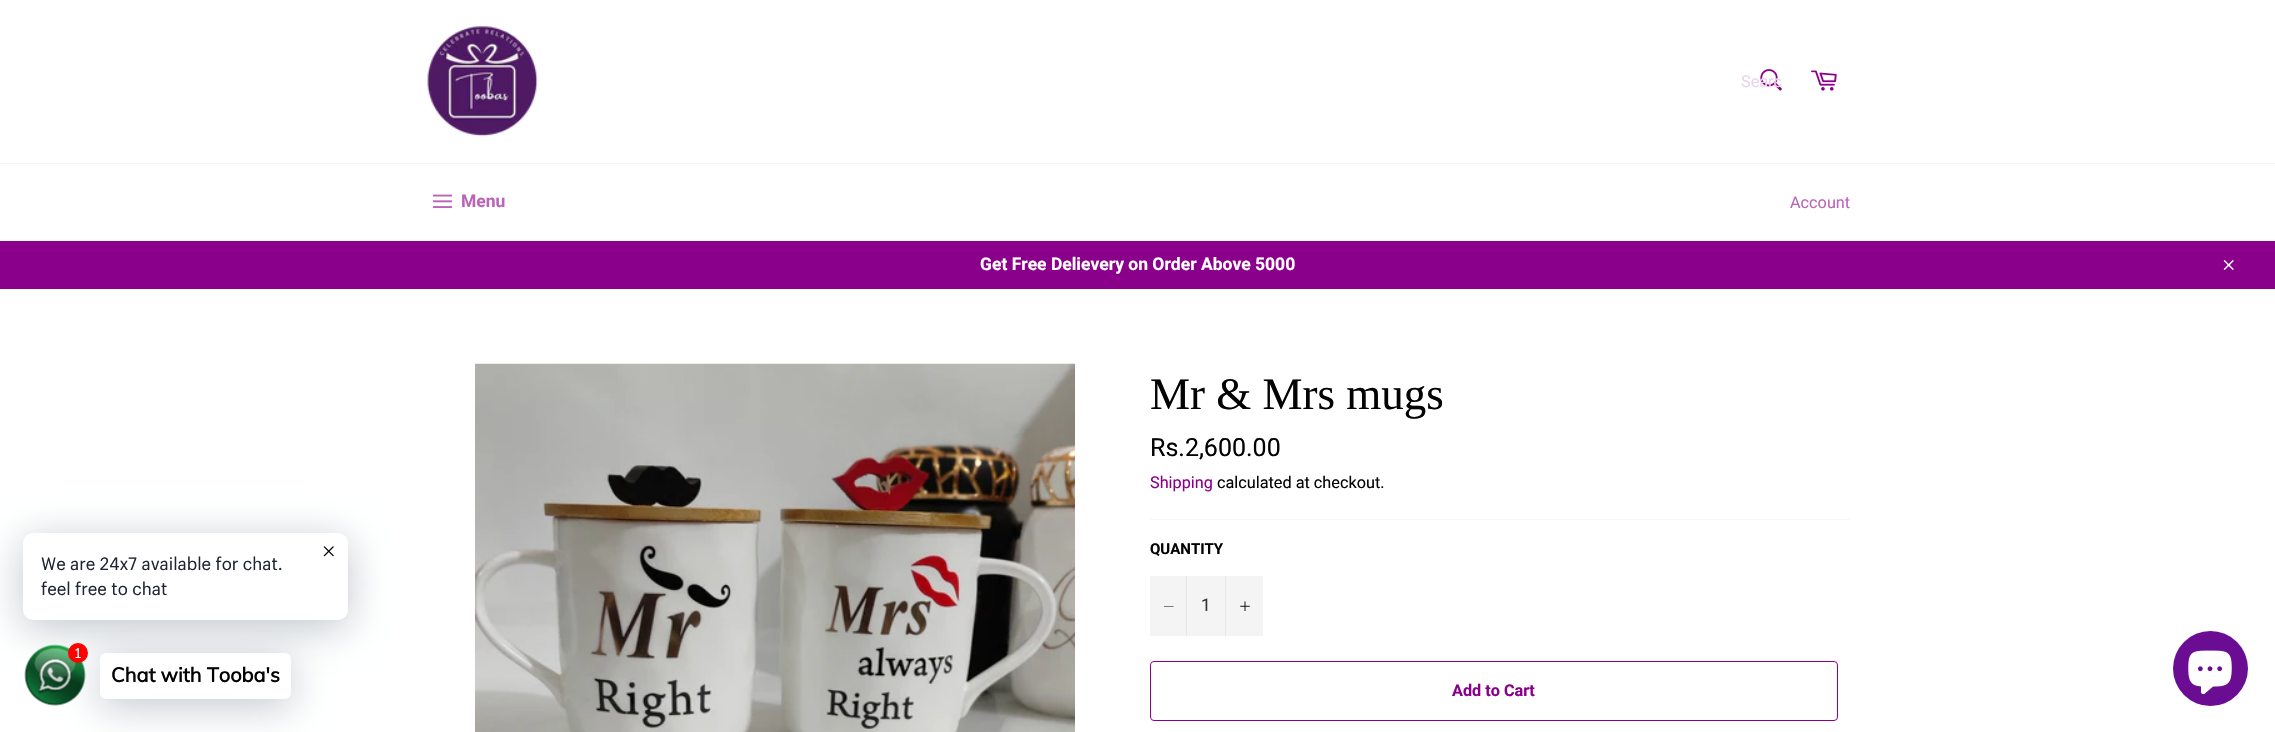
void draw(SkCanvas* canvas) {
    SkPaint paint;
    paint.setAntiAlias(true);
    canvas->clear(0xFFFFFFFF);
    canvas->drawImageRect(SkImages::DeferredFromEncodedData(SkData::MakeFromFileName("img1.png")), SkRect::MakeXYWH(427, 26, 111, 111), SkSamplingOptions());
    canvas->drawImageRect(SkImages::DeferredFromEncodedData(SkData::MakeFromFileName("img2.png")), SkRect::MakeXYWH(1760, 69, 22, 22), SkSamplingOptions());
    canvas->save();
    canvas->clipRect(SkRect::MakeXYWH(1741, 73, 40, 18));
    SkFont font1(fontMgr->matchFamilyStyle("Roboto", SkFontStyle::Normal()), 16.25f);
    font1.setSubpixel(true);
    paint.setColor(0xFFECD5EC);
    canvas->drawString("Searc", 1741, 87, font1, paint);
    canvas->restore();
    canvas->drawImageRect(SkImages::DeferredFromEncodedData(SkData::MakeFromFileName("img3.png")), SkRect::MakeXYWH(1811, 70, 26, 21), SkSamplingOptions());
    paint.setColor(0xFFF2F2F2);
    canvas->drawRect(SkRect::MakeXYWH(0, 163, 2275, 1), paint);
    canvas->drawImageRect(SkImages::DeferredFromEncodedData(SkData::MakeFromFileName("img4.png")), SkRect::MakeXYWH(432, 194, 21, 14), SkSamplingOptions());
    SkFont font2(fontMgr->matchFamilyStyle("Roboto", SkFontStyle::Bold()), 17.5f);
    font2.setSubpixel(true);
    paint.setColor(0xFFB966B9);
    canvas->drawString("Menu", 461, 207, font2, paint);
    canvas->drawString("Account", 1790, 208, font1, paint);
    paint.setColor(0xFF8B008B);
    canvas->drawRect(SkRect::MakeXYWH(0, 241, 2275, 48), paint);
    paint.setColor(0xFFFFFFFF);
    canvas->drawString("Get Free Delievery on Order Above 5000", 980, 270, font2, paint);
    canvas->drawImageRect(SkImages::DeferredFromEncodedData(SkData::MakeFromFileName("img5.png")), SkRect::MakeXYWH(2223, 260, 11, 10), SkSamplingOptions());
    paint.setColor(0x3D00122E);
    paint.setMaskFilter(SkMaskFilter::MakeBlur(kNormal_SkBlurStyle, 20));
    canvas->drawRoundRect(SkRect::MakeXYWH(23, 540, 325, 88), 10, 10, paint);
    paint.setMaskFilter(nullptr);
    paint.setColor(0xFFFFFFFF);
    canvas->drawRoundRect(SkRect::MakeXYWH(23, 533, 325, 87), 10, 10, paint);
    canvas->drawImageRect(SkImages::DeferredFromEncodedData(SkData::MakeFromFileName("img6.png")), SkRect::MakeXYWH(323, 546, 11, 11), SkSamplingOptions());
    SkFont font3(fontMgr->matchFamilyStyle("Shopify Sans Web", SkFontStyle::Normal()), 17.5f);
    font3.setSubpixel(true);
    paint.setColor(0xFF1E2433);
    canvas->drawString("We are 24x7 available for chat.", 41, 570, font3, paint);
    canvas->drawString("feel free to chat", 41, 595, font3, paint);
    canvas->drawImageRect(SkImages::DeferredFromEncodedData(SkData::MakeFromFileName("img7.png")), SkRect::MakeXYWH(24, 644, 62, 62), SkSamplingOptions());
    paint.setColor(0x3D00122E);
    paint.setMaskFilter(SkMaskFilter::MakeBlur(kNormal_SkBlurStyle, 20));
    canvas->drawRoundRect(SkRect::MakeXYWH(100, 660, 191, 46), 6, 6, paint);
    paint.setMaskFilter(nullptr);
    paint.setColor(0xFFFF0000);
    canvas->drawCircle(78, 653, 10, paint);
    SkFont font4(fontMgr->matchFamilyStyle("Shopify Sans Web", SkFontStyle::Normal()), 14);
    font4.setSubpixel(true);
    paint.setColor(0xFFFFFFFF);
    canvas->drawString("1", 75, 658, font4, paint);
    canvas->drawRoundRect(SkRect::MakeXYWH(100, 653, 191, 46), 6, 6, paint);
    SkFont font5(fontMgr->matchFamilyStyle("Muli", SkFontStyle::Bold()), 20);
    font5.setSubpixel(true);
    paint.setColor(0xFF030303);
    canvas->drawString("Chat with Tooba's", 111, 682, font5, paint);
    canvas->drawImageRect(SkImages::DeferredFromEncodedData(SkData::MakeFromFileName("img8.png")), SkRect::MakeXYWH(475, 363, 600, 369), SkSamplingOptions());
    SkFont font6(fontMgr->matchFamilyStyle("Liberation Serif", SkFontStyle::Normal()), 45);
    font6.setSubpixel(true);
    canvas->drawString("Mr & Mrs mugs", 1150, 409, font6, paint);
    SkFont font7(fontMgr->matchFamilyStyle("Roboto", SkFontStyle::Normal()), 25);
    font7.setSubpixel(true);
    canvas->drawString("Rs.2,600.00", 1150, 456, font7, paint);
    paint.setColor(0xFF8B008B);
    canvas->drawString("Shipping", 1150, 488, font1, paint);
    paint.setColor(0xFF030303);
    canvas->drawString("calculated at checkout.", 1217, 488, font1, paint);
    paint.setColor(0xFFF7F7F7);
    canvas->drawRect(SkRect::MakeXYWH(1150, 519, 700, 1), paint);
    SkFont font8(fontMgr->matchFamilyStyle("Roboto", SkFontStyle::Bold()), 15);
    font8.setSubpixel(true);
    paint.setColor(0xFF030303);
    canvas->drawString("QUANTITY", 1150, 554, font8, paint);
    paint.setColor(0xFFF4F4F4);
    canvas->drawRect(SkRect::MakeXYWH(1150, 576, 113, 60), paint);
    paint.setColor(0xFFE7E7E7);
    canvas->drawRect(SkRect::MakeXYWH(1186, 576, 1, 60), paint);
    paint.setColor(0xFF000000);
    canvas->drawPath(SkPathBuilder(SkPathFillType::kEvenOdd).moveTo(1173.5f, 606).lineTo(1173.5f, 606.5f).lineTo(1164, 606.5f).lineTo(1164, 606).close().detach(), paint);
    SkFont font9(fontMgr->matchFamilyStyle("Roboto", SkFontStyle::Normal()), 17.5f);
    font9.setSubpixel(true);
    paint.setColor(0xFF333333);
    canvas->drawString("1", 1201, 611, font9, paint);
    paint.setColor(0xFFE7E7E7);
    canvas->drawRect(SkRect::MakeXYWH(1225, 576, 1, 60), paint);
    canvas->drawImageRect(SkImages::DeferredFromEncodedData(SkData::MakeFromFileName("img9.png")), SkRect::MakeXYWH(1240, 601, 10, 10), SkSamplingOptions());
    paint.setStyle(SkPaint::kStroke_Style);
    paint.setStrokeWidth(1);
    paint.setColor(0xFF8B008B);
    canvas->drawRoundRect(SkRect::MakeXYWH(1150.5f, 661.5f, 687, 59), 3.5f, 3.5f, paint);
    SkFont font10(fontMgr->matchFamilyStyle("Roboto", SkFontStyle::Bold()), 16.25f);
    font10.setSubpixel(true);
    paint.setStyle(SkPaint::kFill_Style);
    canvas->drawString("Add to Cart", 1452, 696, font10, paint);
    paint.setColor(0xFF6B0D93);
    canvas->drawCircle(2210.5f, 668.5f, 37.5f, paint);
    canvas->drawImageRect(SkImages::DeferredFromEncodedData(SkData::MakeFromFileName("img10.png")), SkRect::MakeXYWH(2188, 650, 44, 45), SkSamplingOptions());
}
